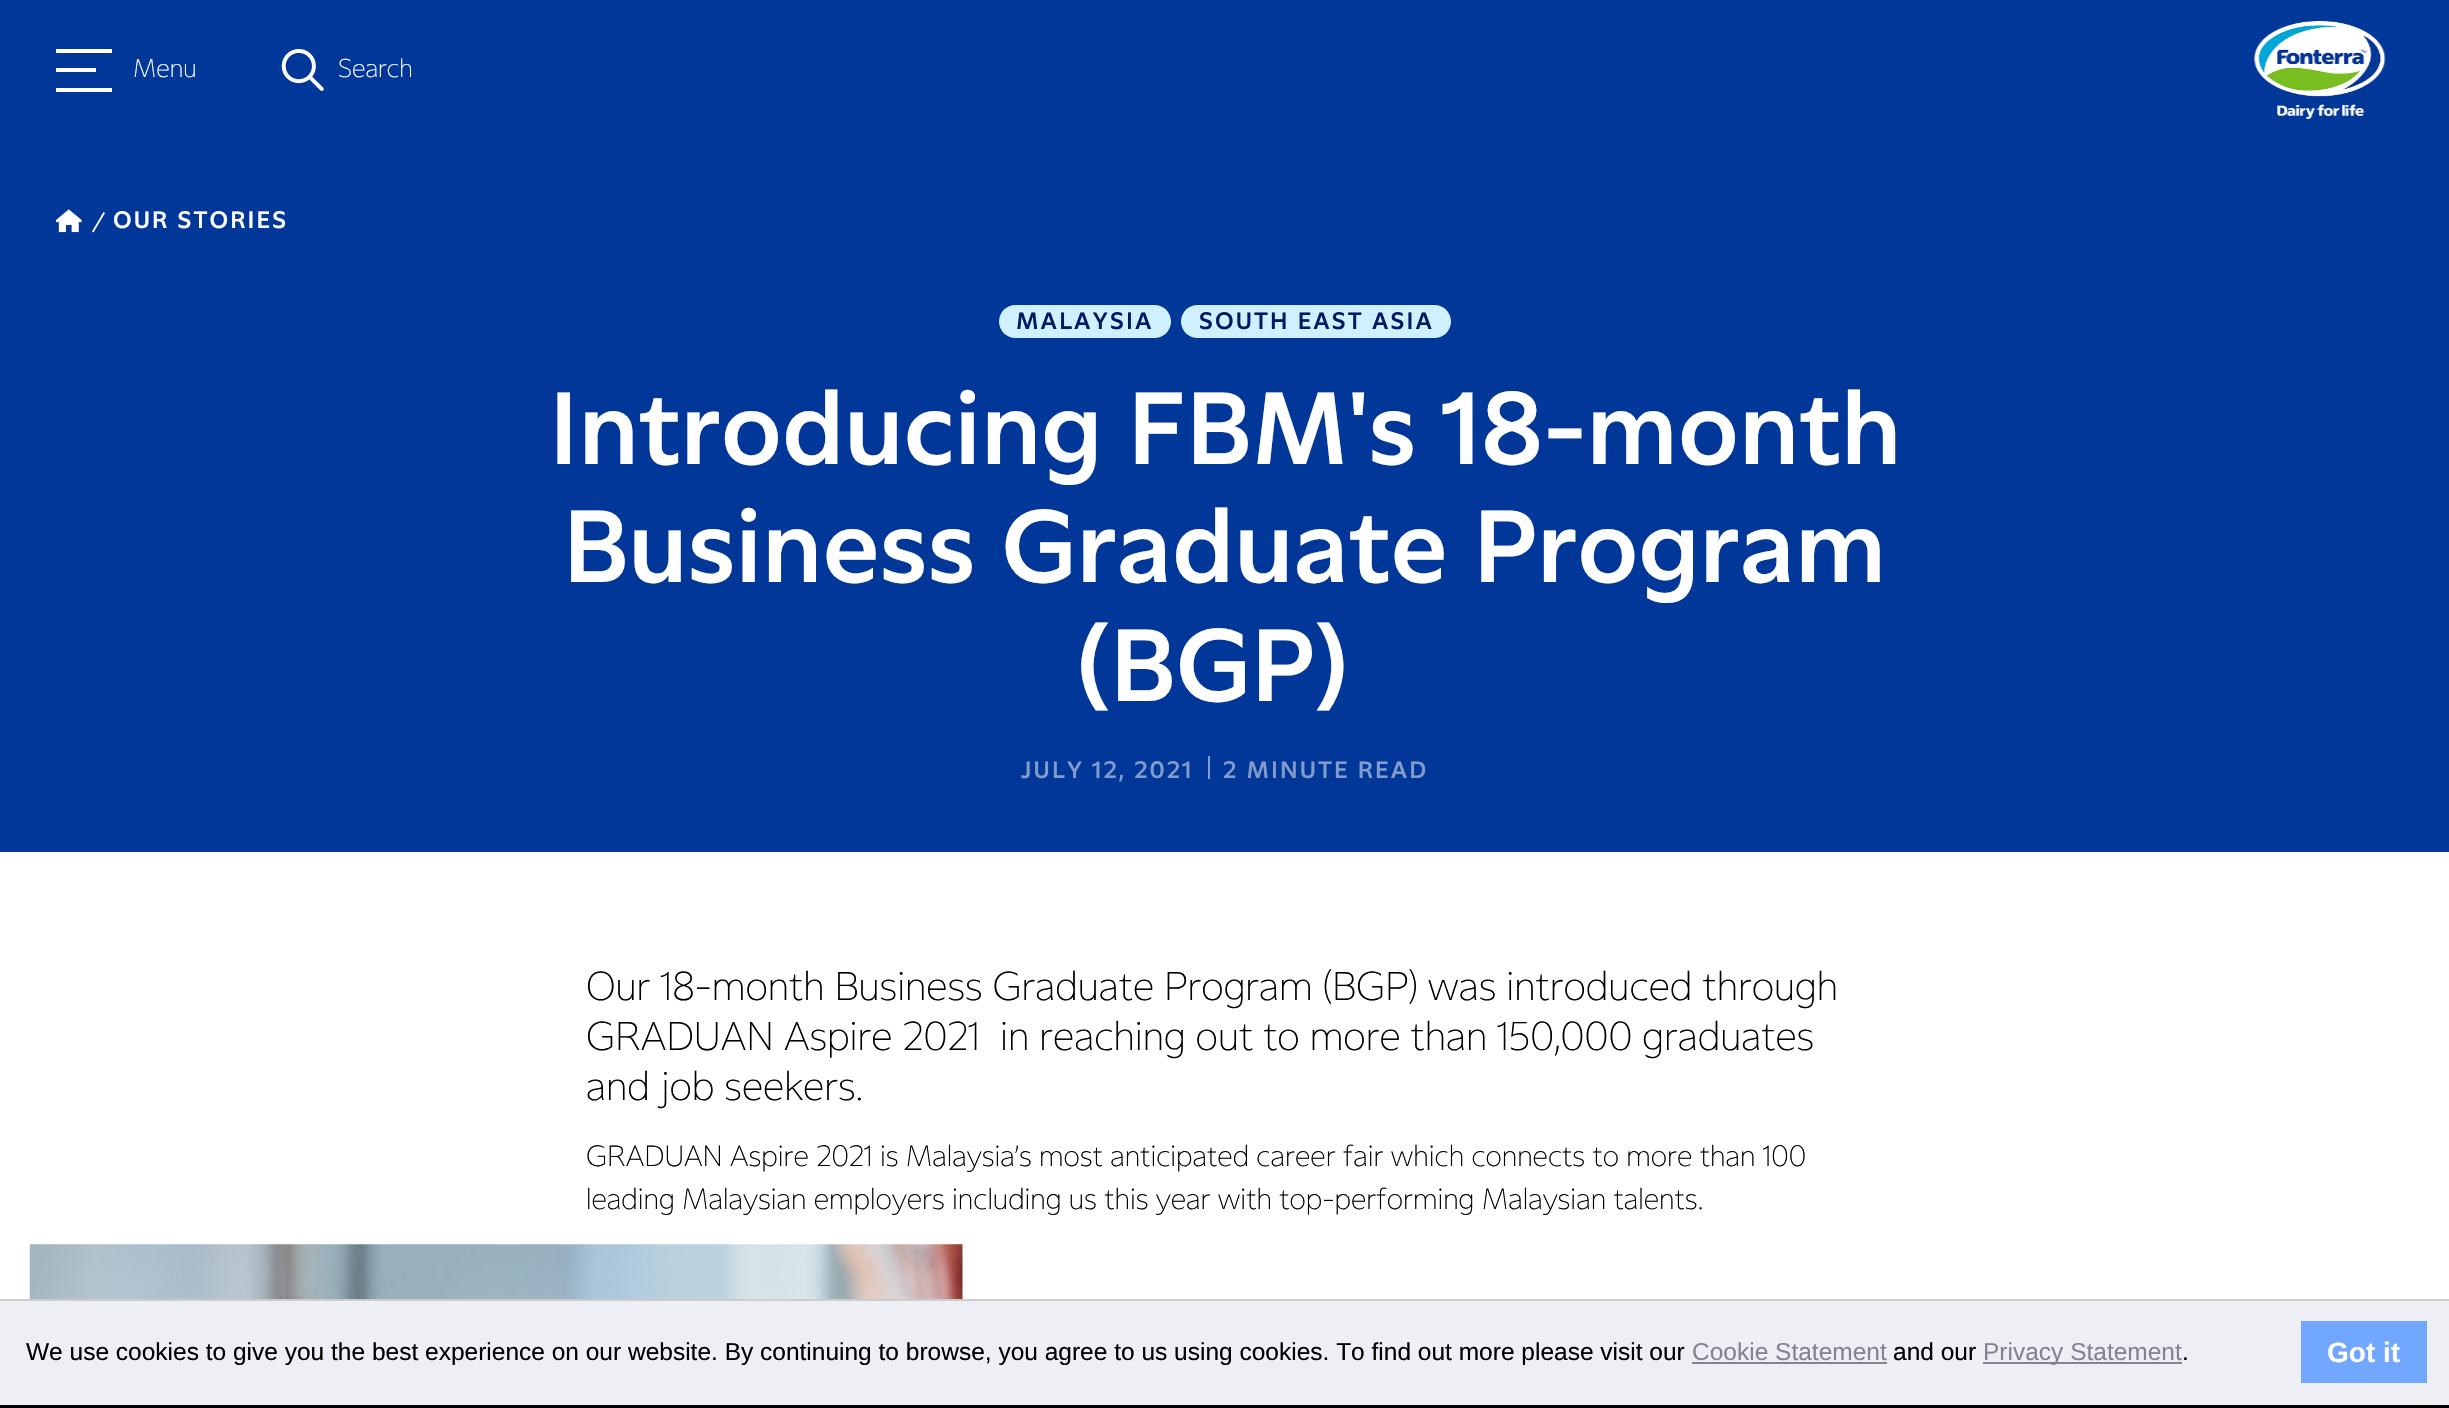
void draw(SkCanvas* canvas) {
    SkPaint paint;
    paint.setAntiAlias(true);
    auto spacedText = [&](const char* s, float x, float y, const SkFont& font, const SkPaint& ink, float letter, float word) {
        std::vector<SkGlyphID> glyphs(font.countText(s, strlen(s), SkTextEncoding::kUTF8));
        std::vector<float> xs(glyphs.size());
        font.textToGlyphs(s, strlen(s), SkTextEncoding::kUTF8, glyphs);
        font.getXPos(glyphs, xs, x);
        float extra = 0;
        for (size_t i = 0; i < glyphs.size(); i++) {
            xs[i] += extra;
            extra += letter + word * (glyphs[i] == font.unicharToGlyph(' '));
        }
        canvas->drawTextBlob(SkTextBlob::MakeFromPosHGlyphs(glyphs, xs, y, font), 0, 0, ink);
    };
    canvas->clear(0xFFFFFFFF);
    paint.setColor(0xFF013799);
    canvas->drawRect(SkRect::MakeXYWH(0, 0, 2449, 852), paint);
    paint.setColor(0xFFFFFFFF);
    canvas->drawRect(SkRect::MakeXYWH(56, 49, 56, 4), paint);
    canvas->drawRect(SkRect::MakeXYWH(56, 68, 40, 4), paint);
    canvas->drawRect(SkRect::MakeXYWH(56, 88, 56, 4), paint);
    SkFont font1(fontMgr->matchFamilyStyle("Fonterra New", SkFontStyle(100, SkFontStyle::kNormal_Width, SkFontStyle::kUpright_Slant)), 24.5f);
    font1.setSubpixel(true);
    canvas->drawString("Menu", 133, 77, font1, paint);
    canvas->drawImageRect(SkImages::DeferredFromEncodedData(SkData::MakeFromFileName("img1.png")), SkRect::MakeXYWH(281, 49, 43, 42), SkSamplingOptions());
    canvas->drawString("Search", 338, 77, font1, paint);
    canvas->drawImageRect(SkImages::DeferredFromEncodedData(SkData::MakeFromFileName("img2.png")), SkRect::MakeXYWH(2254, 21, 132, 98), SkSamplingOptions());
    canvas->drawImageRect(SkImages::DeferredFromEncodedData(SkData::MakeFromFileName("img3.png")), SkRect::MakeXYWH(56, 209, 26, 24), SkSamplingOptions());
    canvas->drawPath(SkPathBuilder().moveTo(103.5f, 212).lineTo(105, 213).lineTo(93.5f, 232.5f).lineTo(92, 231.5f).close().detach(), paint);
    SkFont font2(fontMgr->matchFamilyStyle("Fonterra New", SkFontStyle(500, SkFontStyle::kNormal_Width, SkFontStyle::kUpright_Slant)), 22.75f);
    font2.setSubpixel(true);
    spacedText("OUR STORIES", 113, 228, font2, paint, 2.1f, 0);
    paint.setColor(0xFFCFF1FF);
    canvas->drawRoundRect(SkRect::MakeXYWH(999, 305, 172, 33), 16.5f, 16.5f, paint);
    paint.setColor(0xFF001B66);
    spacedText("MALAYSIA", 1016, 329, font2, paint, 2.1f, 0);
    paint.setColor(0xFFCFF1FF);
    canvas->drawRoundRect(SkRect::MakeXYWH(1181, 305, 270, 33), 16.5f, 16.5f, paint);
    paint.setColor(0xFF001B66);
    spacedText("SOUTH EAST ASIA", 1199, 329, font2, paint, 2.1f, 0);
    SkFont font3(fontMgr->matchFamilyStyle("Fonterra New", SkFontStyle(500, SkFontStyle::kNormal_Width, SkFontStyle::kUpright_Slant)), 98);
    font3.setSubpixel(true);
    paint.setColor(0xFFFFFFFF);
    canvas->drawString("Introducing FBM's 18-month", 549, 464, font3, paint);
    canvas->drawString("Business Graduate Program", 563, 582, font3, paint);
    canvas->drawString("(BGP)", 1077, 701, font3, paint);
    paint.setColor(0xFF809BCC);
    spacedText("JULY 12, 2021", 1021, 778, font2, paint, 2.1f, 0);
    canvas->drawRect(SkRect::MakeXYWH(1208, 756, 2, 23), paint);
    spacedText("2 MINUTE READ", 1223, 778, font2, paint, 2.1f, 0);
    SkFont font4(fontMgr->matchFamilyStyle("Fonterra New", SkFontStyle(100, SkFontStyle::kNormal_Width, SkFontStyle::kUpright_Slant)), 38.5f);
    font4.setSubpixel(true);
    paint.setColor(0xFF000000);
    canvas->drawString("Our 18-month Business Graduate Program (BGP) was introduced through", 586, 1000, font4, paint);
    canvas->drawString("GRADUAN Aspire 2021  in reaching out to more than 150,000 graduates", 586, 1050, font4, paint);
    canvas->drawString("and job seekers.", 586, 1100, font4, paint);
    SkFont font5(fontMgr->matchFamilyStyle("Fonterra New", SkFontStyle(100, SkFontStyle::kNormal_Width, SkFontStyle::kUpright_Slant)), 28);
    font5.setSubpixel(true);
    canvas->drawString("GRADUAN Aspire 2021 is Malaysia’s most anticipated career fair which connects to more than 100", 586, 1166, font5, paint);
    canvas->drawString("leading Malaysian employers including us this year with top-performing Malaysian talents.", 586, 1209, font5, paint);
    canvas->drawImageRect(SkImages::DeferredFromEncodedData(SkData::MakeFromFileName("img4.png")), SkRect::MakeXYWH(29, 1244, 934, 55), SkSamplingOptions());
    paint.setColor(0xFFEDEFF5);
    canvas->drawRect(SkRect::MakeXYWH(0, 1301, 2449, 104), paint);
    paint.setColor(0xFFCCCCCC);
    canvas->drawRect(SkRect::MakeXYWH(0, 1299, 2449, 2), paint);
    paint.setColor(0xFF000000);
    canvas->drawRect(SkRect::MakeXYWH(0, 1405, 2449, 3), paint);
    SkFont font6(fontMgr->matchFamilyStyle("Liberation Sans", SkFontStyle::Normal()), 24.5f);
    font6.setSubpixel(true);
    canvas->drawString("We use cookies to give you the best experience on our website. By continuing to browse, you agree to us using cookies. To find out more please visit our", 26, 1360, font6, paint);
    paint.setColor(0xFF838391);
    canvas->drawString("Cookie Statement", 1692, 1360, font6, paint);
    canvas->drawRect(SkRect::MakeXYWH(1692, 1362, 195, 2), paint);
    paint.setColor(0xFF000000);
    canvas->drawString("and our", 1893, 1360, font6, paint);
    paint.setColor(0xFF838391);
    canvas->drawRect(SkRect::MakeXYWH(1983, 1362, 199, 2), paint);
    canvas->drawString("Privacy Statement", 1983, 1360, font6, paint);
    paint.setColor(0xFF000000);
    canvas->drawString(".", 2182, 1360, font6, paint);
    paint.setColor(0xFF71A7FF);
    canvas->drawRect(SkRect::MakeXYWH(2301, 1321, 126, 62), paint);
    SkFont font7(fontMgr->matchFamilyStyle("Liberation Sans", SkFontStyle::Bold()), 28);
    font7.setSubpixel(true);
    paint.setColor(0xFFFFFFFF);
    canvas->drawString("Got it", 2327, 1362, font7, paint);
}
